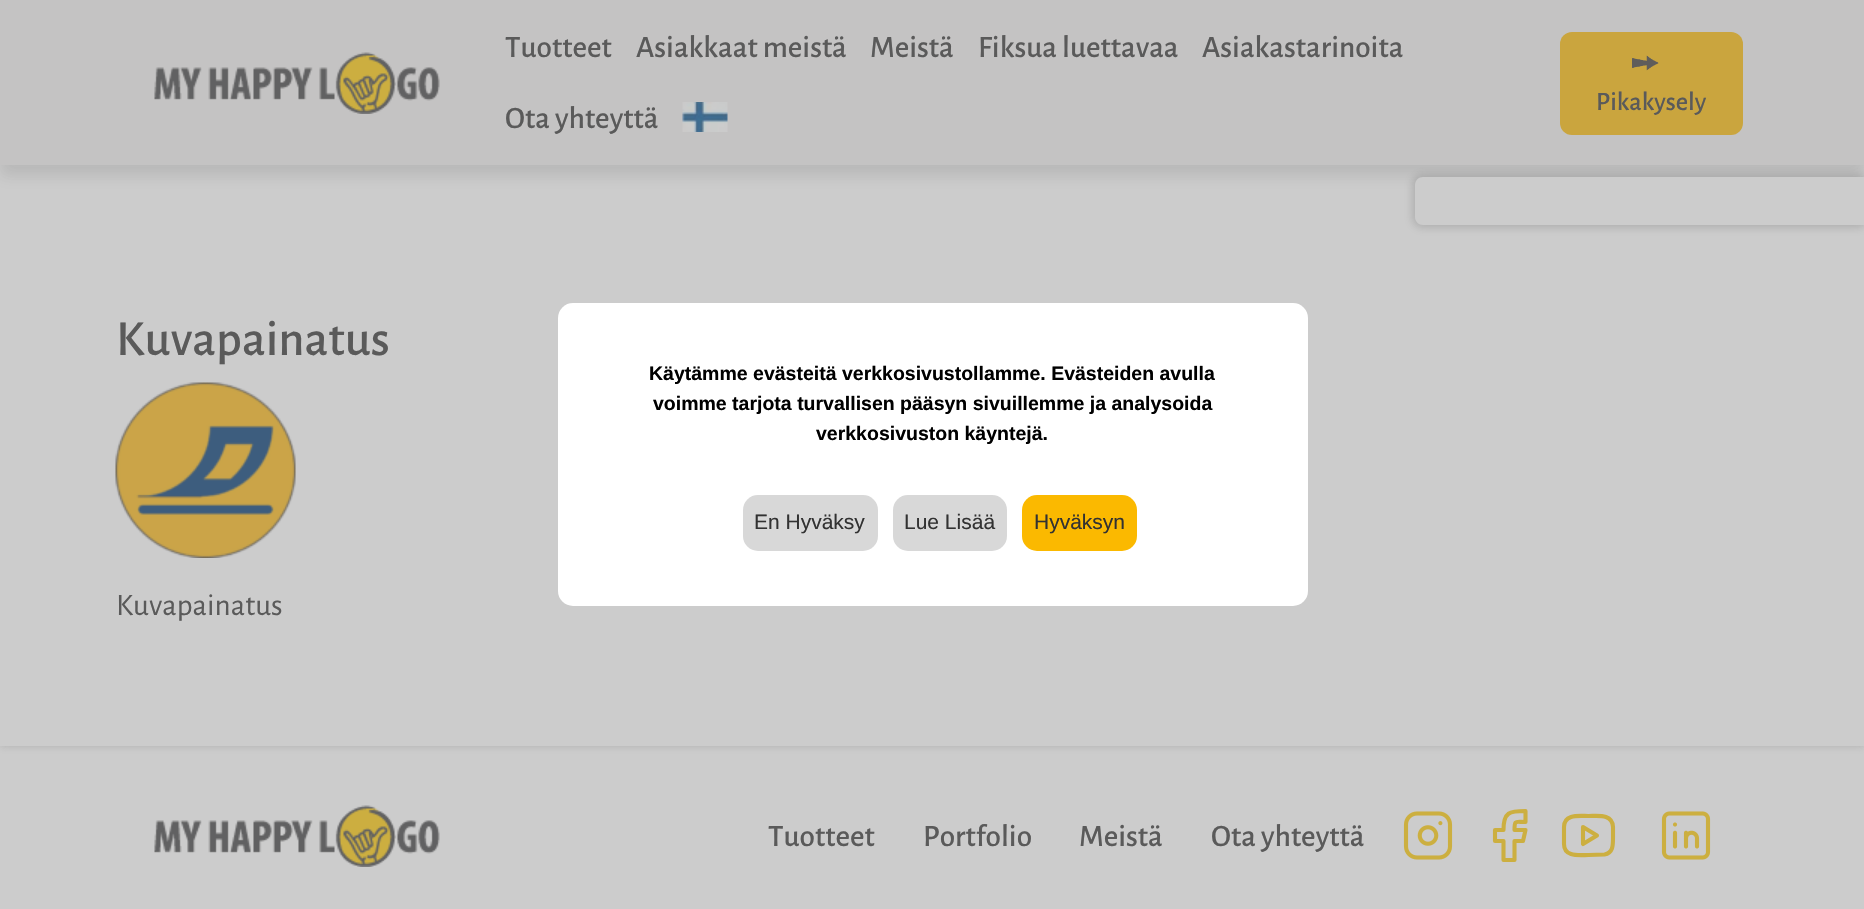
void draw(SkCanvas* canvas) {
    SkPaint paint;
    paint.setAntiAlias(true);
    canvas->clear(0xFFCCCCCC);
    paint.setColor(0x243E3E3E);
    paint.setMaskFilter(SkMaskFilter::MakeBlur(kNormal_SkBlurStyle, 7));
    canvas->drawRect(SkRect::MakeXYWH(0, 11, 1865, 165), paint);
    paint.setMaskFilter(nullptr);
    canvas->save();
    canvas->clipPath(SkPathBuilder(SkPathFillType::kEvenOdd).moveTo(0, 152).lineTo(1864, 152).lineTo(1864, 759).lineTo(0, 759).close().moveTo(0, 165).lineTo(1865, 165).lineTo(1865, 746).lineTo(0, 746).close().detach(), true);
    paint.setColor(0x333E3E3E);
    paint.setMaskFilter(SkMaskFilter::MakeBlur(kNormal_SkBlurStyle, 4));
    canvas->drawRect(SkRect::MakeXYWH(0, 165, 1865, 581), paint);
    paint.setMaskFilter(nullptr);
    canvas->restore();
    paint.setColor(0xFFC4C3C3);
    canvas->drawRect(SkRect::MakeXYWH(0, 0, 1864, 165), paint);
    canvas->drawImageRect(SkImages::DeferredFromEncodedData(SkData::MakeFromFileName("img1.png")), SkRect::MakeXYWH(154, 52, 286, 62), SkSamplingOptions());
    SkFont font1(fontMgr->matchFamilyStyle("Alegreya Sans", SkFontStyle(500, SkFontStyle::kNormal_Width, SkFontStyle::kUpright_Slant)), 31.25f);
    font1.setSubpixel(true);
    paint.setColor(0xFF5A5A5A);
    canvas->drawString("Tuotteet", 505, 57, font1, paint);
    canvas->drawString("Asiakkaat meistä", 636, 57, font1, paint);
    canvas->drawString("Meistä", 870, 57, font1, paint);
    canvas->drawString("Fiksua luettavaa", 978, 57, font1, paint);
    canvas->drawString("Asiakastarinoita", 1202, 57, font1, paint);
    canvas->drawString("Ota yhteyttä", 505, 128, font1, paint);
    canvas->drawImageRect(SkImages::DeferredFromEncodedData(SkData::MakeFromFileName("img2.png")), SkRect::MakeXYWH(682, 102, 46, 30), SkSamplingOptions());
    paint.setColor(0xFFCAA53E);
    canvas->drawRoundRect(SkRect::MakeXYWH(1560, 32, 183, 103), 12, 12, paint);
    canvas->drawImageRect(SkImages::DeferredFromEncodedData(SkData::MakeFromFileName("img3.png")), SkRect::MakeXYWH(1632, 55, 27, 16), SkSamplingOptions());
    SkFont font2(fontMgr->matchFamilyStyle("Alegreya Sans", SkFontStyle(500, SkFontStyle::kNormal_Width, SkFontStyle::kUpright_Slant)), 26.5f);
    font2.setSubpixel(true);
    paint.setColor(0xFF5A5A5A);
    canvas->drawString("Pikakysely", 1596, 110, font2, paint);
    paint.setColor(0x333E3E3E);
    paint.setMaskFilter(SkMaskFilter::MakeBlur(kNormal_SkBlurStyle, 4));
    canvas->drawRoundRect(SkRect::MakeXYWH(1412, 174, 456, 54), 11, 11, paint);
    paint.setMaskFilter(nullptr);
    paint.setColor(0xFFCCCCCC);
    canvas->drawPath(SkPathBuilder().moveTo(1423, 177).lineTo(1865, 177).lineTo(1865, 225).lineTo(1423, 225).cubicTo(1418.5f, 225, 1415, 221.5f, 1415, 217).lineTo(1415, 185).cubicTo(1415, 180.5f, 1418.5f, 177, 1423, 177).close().detach(), paint);
    SkFont font3(fontMgr->matchFamilyStyle("Alegreya Sans", SkFontStyle(500, SkFontStyle::kNormal_Width, SkFontStyle::kUpright_Slant)), 50.5f);
    font3.setSubpixel(true);
    paint.setColor(0xFF5A5A5A);
    canvas->drawString("Kuvapainatus", 116, 355, font3, paint);
    canvas->drawImageRect(SkImages::DeferredFromEncodedData(SkData::MakeFromFileName("img4.png")), SkRect::MakeXYWH(115, 382, 181, 176), SkSamplingOptions());
    SkFont font4(fontMgr->matchFamilyStyle("Alegreya Sans", SkFontStyle::Normal()), 31.25f);
    font4.setSubpixel(true);
    canvas->drawString("Kuvapainatus", 116, 615, font4, paint);
    paint.setColor(0xFFFFFFFF);
    canvas->drawRoundRect(SkRect::MakeXYWH(558, 303, 750, 303), 15, 15, paint);
    SkFont font5(fontMgr->matchFamilyStyle("Liberation Sans", SkFontStyle::Bold()), 19.5f);
    font5.setSubpixel(true);
    paint.setColor(0xFF000000);
    canvas->drawString("Käytämme evästeitä verkkosivustollamme. Evästeiden avulla", 649, 380, font5, paint);
    canvas->drawString("voimme tarjota turvallisen pääsyn sivuillemme ja analysoida", 653, 410, font5, paint);
    canvas->drawString("verkkosivuston käyntejä.", 816, 440, font5, paint);
    paint.setColor(0xFFD8D8D8);
    canvas->drawRoundRect(SkRect::MakeXYWH(743, 495, 135, 56), 15, 15, paint);
    SkFont font6(fontMgr->matchFamilyStyle("Liberation Sans", SkFontStyle::Normal()), 21);
    font6.setSubpixel(true);
    paint.setColor(0xFF323232);
    canvas->drawString("En Hyväksy", 754, 529, font6, paint);
    paint.setColor(0xFFD8D8D8);
    canvas->drawRoundRect(SkRect::MakeXYWH(893, 495, 114, 56), 15, 15, paint);
    paint.setColor(0xFF323232);
    canvas->drawString("Lue Lisää", 904, 529, font6, paint);
    paint.setColor(0xFFFBB900);
    canvas->drawRoundRect(SkRect::MakeXYWH(1022, 495, 115, 56), 15, 15, paint);
    paint.setColor(0xFF323232);
    canvas->drawString("Hyväksyn", 1034, 529, font6, paint);
    canvas->drawImageRect(SkImages::DeferredFromEncodedData(SkData::MakeFromFileName("img5.png")), SkRect::MakeXYWH(154, 805, 286, 62), SkSamplingOptions());
    paint.setColor(0xFF5A5A5A);
    canvas->drawString("Tuotteet", 768, 846, font1, paint);
    canvas->drawString("Portfolio", 923, 846, font1, paint);
    canvas->drawString("Meistä", 1079, 846, font1, paint);
    canvas->drawString("Ota yhteyttä", 1211, 846, font1, paint);
    canvas->drawImageRect(SkImages::DeferredFromEncodedData(SkData::MakeFromFileName("img6.png")), SkRect::MakeXYWH(1403, 811, 50, 49), SkSamplingOptions());
    paint.setStyle(SkPaint::kStroke_Style);
    paint.setStrokeWidth(4.1f);
    paint.setStrokeCap(SkPaint::kRound_Cap);
    paint.setStrokeJoin(SkPaint::kRound_Join);
    paint.setColor(0xFFCCAF40);
    canvas->drawPath(SkPathBuilder().moveTo(1495, 830).lineTo(1495, 841).lineTo(1503.5f, 841).lineTo(1503.5f, 860).lineTo(1514.5f, 860).lineTo(1514.5f, 841).lineTo(1523, 841).lineTo(1525.5f, 830).lineTo(1514.5f, 830).cubicTo(1514.5f, 819.5f, 1515.5f, 822, 1525.5f, 822).lineTo(1525.5f, 811).cubicTo(1509.5f, 811, 1503.5f, 812, 1503.5f, 830).lineTo(1495, 830).detach(), paint);
    canvas->drawPath(SkPathBuilder().moveTo(1564, 827).cubicTo(1564, 813.5f, 1579.5f, 816, 1588.5f, 816).cubicTo(1598, 816, 1612.5f, 813.5f, 1613, 827).lineTo(1613, 838).cubicTo(1613, 845.5f, 1613, 853, 1604.5f, 854.5f).lineTo(1588.5f, 855).cubicTo(1579.5f, 855, 1564, 857.5f, 1564, 844).close().moveTo(1583, 827).lineTo(1597, 835.5f).lineTo(1583, 844).close().detach(), paint);
    canvas->drawImageRect(SkImages::DeferredFromEncodedData(SkData::MakeFromFileName("img7.png")), SkRect::MakeXYWH(1661, 811, 50, 49), SkSamplingOptions());
}
